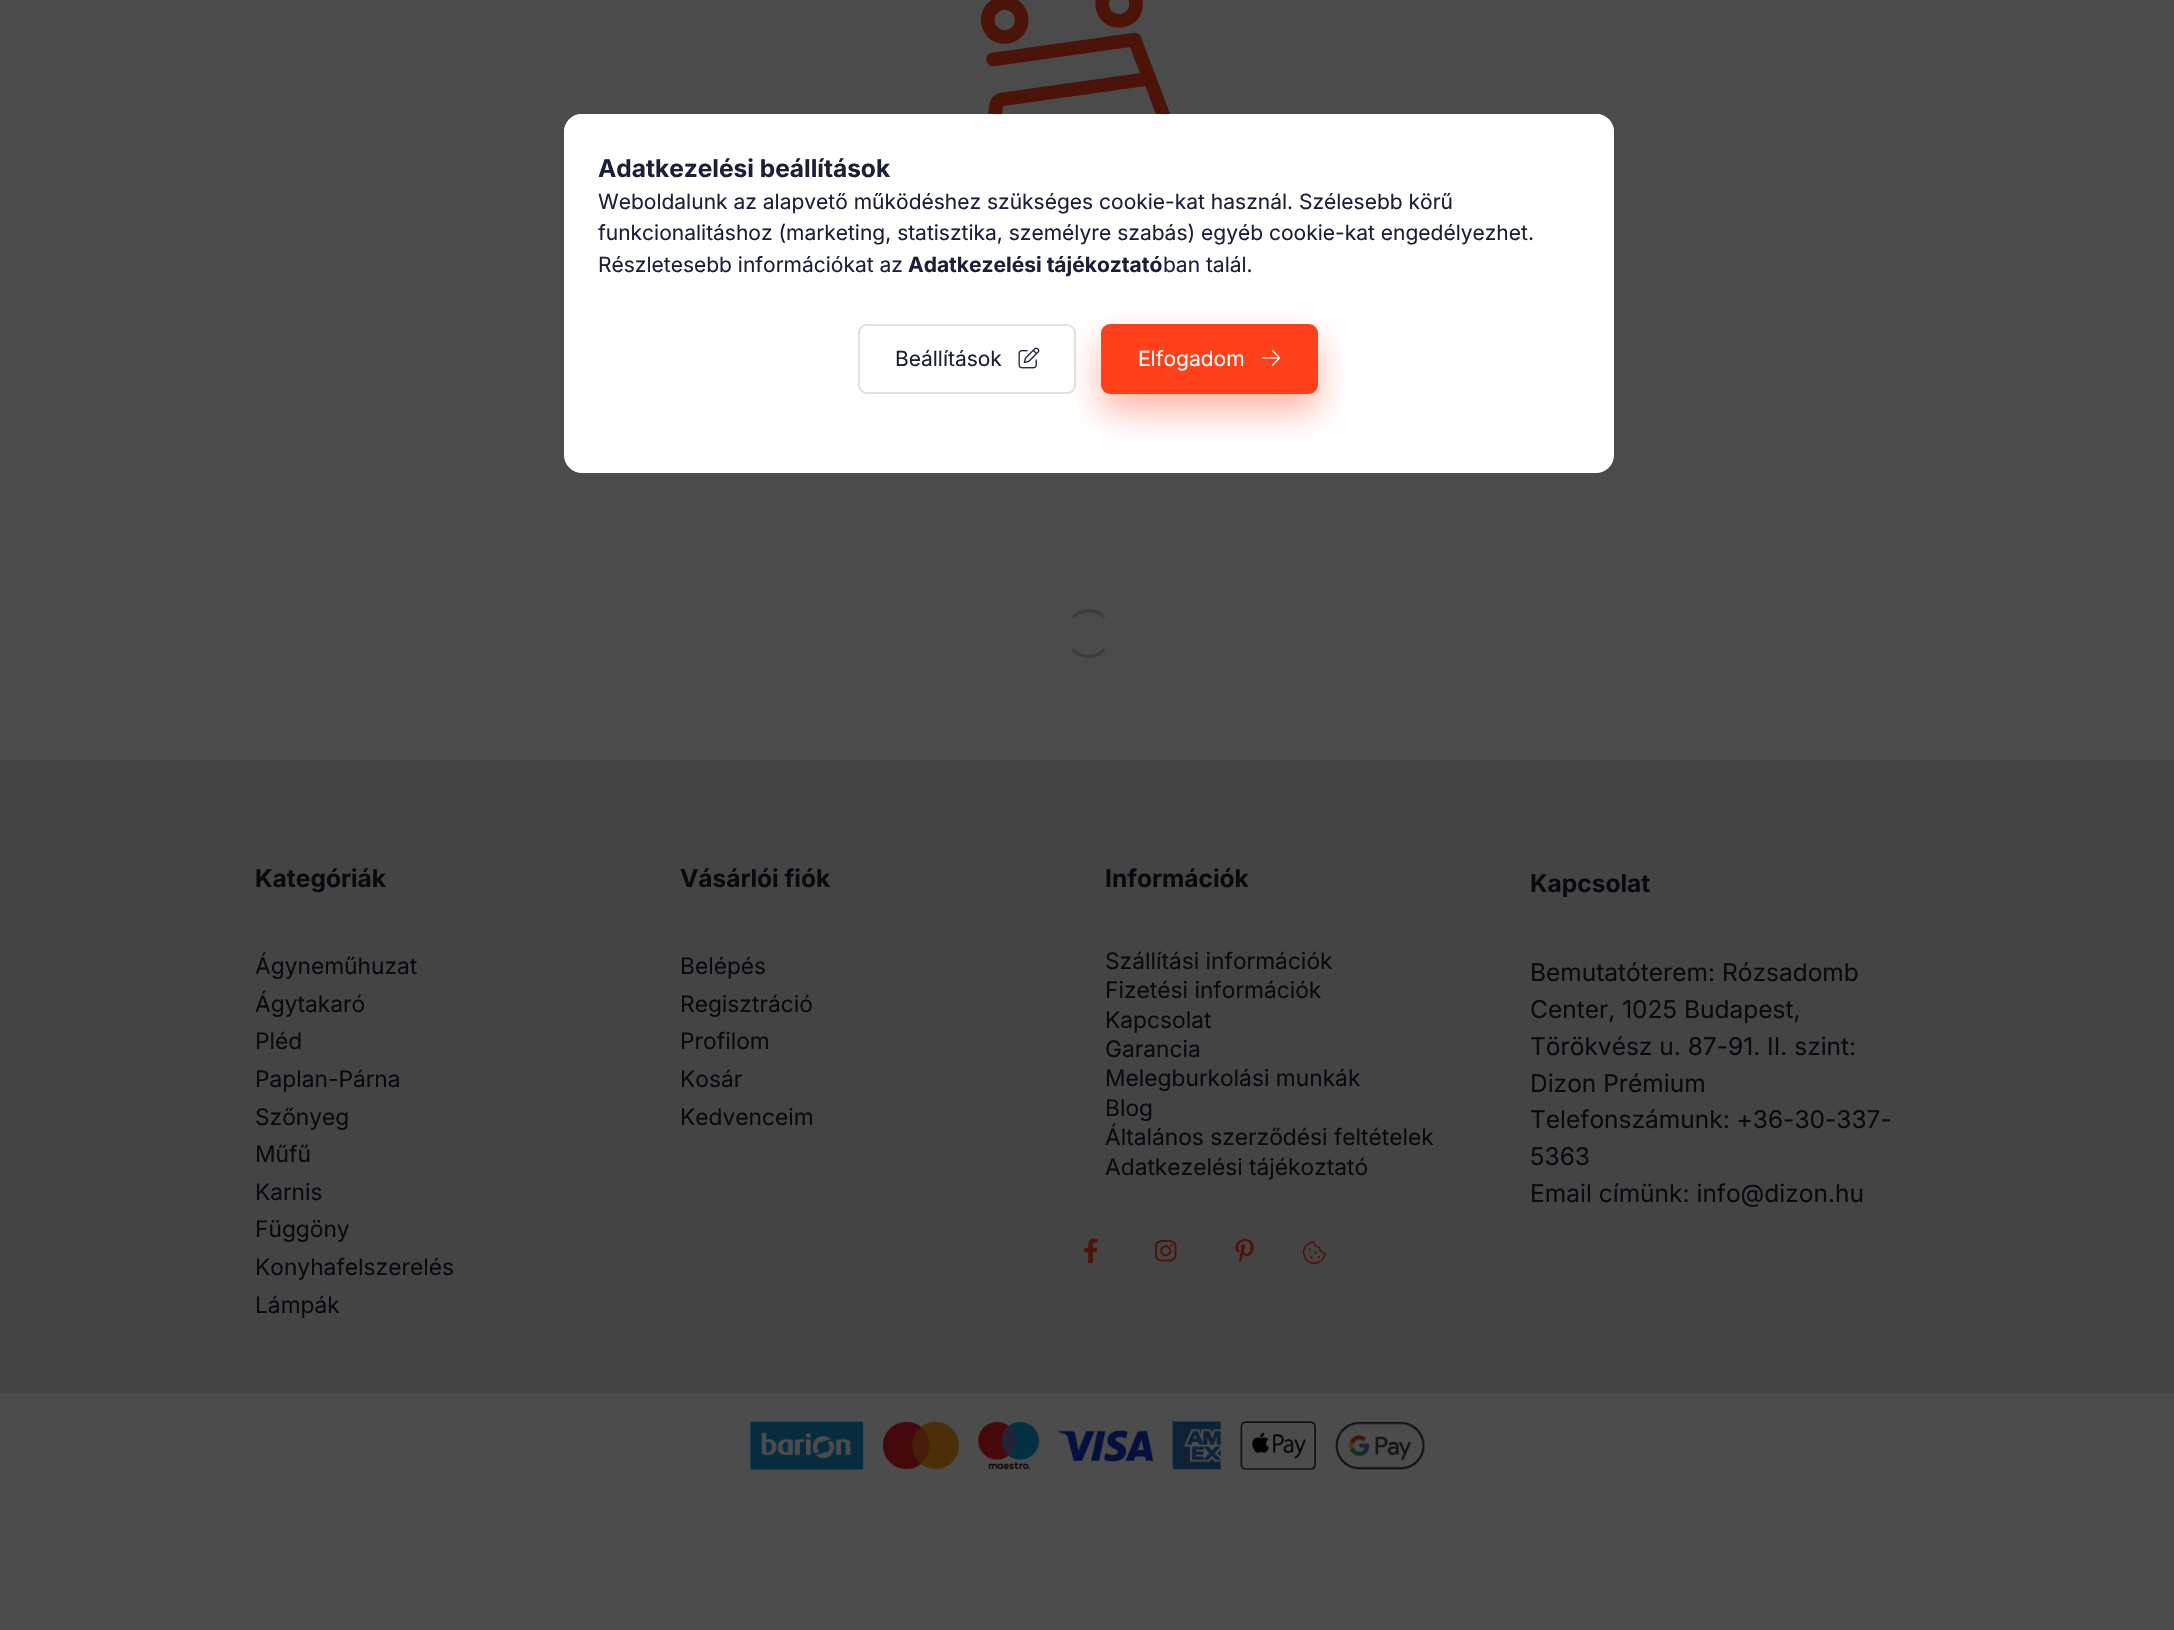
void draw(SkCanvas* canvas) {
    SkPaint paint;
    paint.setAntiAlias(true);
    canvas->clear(0xFF4B4B4B);
    {
        const SkColor colors[] = {0xFF4B4B4B, 0xFF424242, 0xFF4B4B4B};
        const float stops[] = {0.1f, 0.5f, 0.9f};
        const SkPoint ends[] = {{256, 191}, {1922, 191}};
        paint.setShader(SkGradientShader::MakeLinear(ends, colors, stops, 3, SkTileMode::kClamp));
        paint.setAlpha(255);
    }
    canvas->drawRect(SkRect::MakeXYWH(608, 158, 962, 66), paint);
    {
        const SkColor colors[] = {0xFF4B4B4B, 0x004B4B4B};
        const float stops[] = {0, 1};
        const SkPoint ends[] = {{1089, 224}, {1089, 158}};
        paint.setShader(SkGradientShader::MakeLinear(ends, colors, stops, 2, SkTileMode::kClamp));
        paint.setAlpha(255);
    }
    canvas->drawRect(SkRect::MakeXYWH(608, 176, 962, 48), paint);
    paint.setShader(nullptr);
    paint.setColor(0xFFFFFFFF);
    canvas->drawRoundRect(SkRect::MakeXYWH(564, 114, 1050, 359), 18, 18, paint);
    canvas->drawPath(SkPathBuilder().moveTo(582, 114).lineTo(1596, 114).cubicTo(1606, 114, 1614, 122, 1614, 132).lineTo(1614, 438).lineTo(564, 438).lineTo(564, 132).cubicTo(564, 122, 572, 114, 582, 114).close().detach(), paint);
    SkFont font1(fontMgr->matchFamilyStyle("Inter", SkFontStyle::Bold()), 24.5f);
    font1.setSubpixel(true);
    paint.setColor(0xFF1B2036);
    canvas->drawString("Adatkezelési beállítások", 598, 177, font1, paint);
    SkFont font2(fontMgr->matchFamilyStyle("Inter", SkFontStyle::Normal()), 21);
    font2.setSubpixel(true);
    canvas->drawString("Weboldalunk az alapvető működéshez szükséges cookie-kat használ. Szélesebb körű", 598, 209, font2, paint);
    canvas->drawString("funkcionalitáshoz (marketing, statisztika, személyre szabás) egyéb cookie-kat engedélyezhet.", 598, 240, font2, paint);
    canvas->drawString("Részletesebb információkat az", 598, 272, font2, paint);
    SkFont font3(fontMgr->matchFamilyStyle("Inter", SkFontStyle::Bold()), 21);
    font3.setSubpixel(true);
    canvas->drawString("Adatkezelési tájékoztató", 908, 272, font3, paint);
    canvas->drawString("ban talál.", 1163, 272, font2, paint);
    paint.setStyle(SkPaint::kStroke_Style);
    paint.setStrokeWidth(2);
    paint.setColor(0xFFE1E1E1);
    canvas->drawRoundRect(SkRect::MakeXYWH(859, 325, 216, 68), 8, 8, paint);
    paint.setStyle(SkPaint::kFill_Style);
    paint.setColor(0xFF1B2036);
    canvas->drawString("Beállítások", 895, 366, font2, paint);
    canvas->drawImageRect(SkImages::DeferredFromEncodedData(SkData::MakeFromFileName("img1.png")), SkRect::MakeXYWH(1018, 347, 22, 22), SkSamplingOptions());
    paint.setColor(0x66FF401B);
    paint.setMaskFilter(SkMaskFilter::MakeBlur(kNormal_SkBlurStyle, 17.5f));
    canvas->drawRoundRect(SkRect::MakeXYWH(1101, 341, 217, 70), 9, 9, paint);
    paint.setMaskFilter(nullptr);
    paint.setColor(0xFFFF401B);
    canvas->drawRoundRect(SkRect::MakeXYWH(1102, 325, 215, 68), 8, 8, paint);
    paint.setStyle(SkPaint::kStroke_Style);
    canvas->drawRoundRect(SkRect::MakeXYWH(1102, 325, 215, 68), 8, 8, paint);
    paint.setStyle(SkPaint::kFill_Style);
    paint.setColor(0xFFFFFFFF);
    canvas->drawString("Elfogadom", 1138, 366, font2, paint);
    canvas->drawImageRect(SkImages::DeferredFromEncodedData(SkData::MakeFromFileName("img2.png")), SkRect::MakeXYWH(1261, 350, 20, 16), SkSamplingOptions());
    canvas->drawImageRect(SkImages::DeferredFromEncodedData(SkData::MakeFromFileName("img3.png")), SkRect::MakeXYWH(981, 0, 190, 114), SkSamplingOptions());
    paint.setStyle(SkPaint::kStroke_Style);
    paint.setStrokeWidth(3.5f);
    paint.setColor(0xFF3D3D3D);
    canvas->drawPath(SkPathBuilder().moveTo(1072.5f, 617.5f).cubicTo(1081, 608.5f, 1096, 608.5f, 1104.5f, 617.5f).moveTo(1104.5f, 649.5f).cubicTo(1096, 658.5f, 1081, 658.5f, 1072.5f, 649.5f).detach(), paint);
    paint.setStyle(SkPaint::kFill_Style);
    paint.setColor(0xFF444444);
    canvas->drawRect(SkRect::MakeXYWH(0, 760, 2174, 633), paint);
    paint.setColor(0xFF080A10);
    canvas->drawString("Kategóriák", 255, 887, font1, paint);
    SkFont font4(fontMgr->matchFamilyStyle("Inter", SkFontStyle::Normal()), 22.75f);
    font4.setSubpixel(true);
    canvas->drawString("Ágyneműhuzat", 255, 974, font4, paint);
    canvas->drawString("Ágytakaró", 255, 1012, font4, paint);
    canvas->drawString("Pléd", 255, 1049, font4, paint);
    canvas->drawString("Paplan-Párna", 255, 1087, font4, paint);
    canvas->drawString("Szőnyeg", 255, 1125, font4, paint);
    canvas->drawString("Műfű", 255, 1162, font4, paint);
    canvas->drawString("Karnis", 255, 1200, font4, paint);
    canvas->drawString("Függöny", 255, 1237, font4, paint);
    canvas->drawString("Konyhafelszerelés", 255, 1275, font4, paint);
    canvas->drawString("Lámpák", 255, 1313, font4, paint);
    canvas->drawString("Vásárlói fiók", 680, 887, font1, paint);
    canvas->drawString("Belépés", 680, 974, font4, paint);
    canvas->drawString("Regisztráció", 680, 1012, font4, paint);
    canvas->drawString("Profilom", 680, 1049, font4, paint);
    canvas->drawString("Kosár", 680, 1087, font4, paint);
    canvas->drawString("Kedvenceim", 680, 1125, font4, paint);
    canvas->drawString("Információk", 1105, 887, font1, paint);
    canvas->drawString("Szállítási információk", 1105, 969, font4, paint);
    canvas->drawString("Fizetési információk", 1105, 998, font4, paint);
    canvas->drawString("Kapcsolat", 1105, 1028, font4, paint);
    canvas->drawString("Garancia", 1105, 1057, font4, paint);
    canvas->drawString("Melegburkolási munkák", 1105, 1086, font4, paint);
    canvas->drawString("Blog", 1105, 1116, font4, paint);
    canvas->drawString("Általános szerződési feltételek", 1105, 1145, font4, paint);
    canvas->drawString("Adatkezelési tájékoztató", 1105, 1175, font4, paint);
    canvas->drawImageRect(SkImages::DeferredFromEncodedData(SkData::MakeFromFileName("img4.png")), SkRect::MakeXYWH(1084, 1238, 14, 26), SkSamplingOptions());
    canvas->drawImageRect(SkImages::DeferredFromEncodedData(SkData::MakeFromFileName("img5.png")), SkRect::MakeXYWH(1155, 1240, 22, 22), SkSamplingOptions());
    canvas->drawImageRect(SkImages::DeferredFromEncodedData(SkData::MakeFromFileName("img6.png")), SkRect::MakeXYWH(1235, 1238, 19, 25), SkSamplingOptions());
    canvas->drawImageRect(SkImages::DeferredFromEncodedData(SkData::MakeFromFileName("img7.png")), SkRect::MakeXYWH(1302, 1241, 24, 23), SkSamplingOptions());
    canvas->drawString("Kapcsolat", 1530, 892, font1, paint);
    SkFont font5(fontMgr->matchFamilyStyle("Inter", SkFontStyle::Normal()), 24.5f);
    font5.setSubpixel(true);
    canvas->drawString("Bemutatóterem: Rózsadomb", 1530, 981, font5, paint);
    canvas->drawString("Center, 1025 Budapest,", 1530, 1018, font5, paint);
    canvas->drawString("Törökvész u. 87-91. II. szint:", 1530, 1055, font5, paint);
    canvas->drawString("Dizon Prémium", 1530, 1092, font5, paint);
    canvas->drawString("Telefonszámunk: +36-30-337-", 1530, 1128, font5, paint);
    canvas->drawString("5363", 1530, 1165, font5, paint);
    canvas->drawString("Email címünk: info@dizon.hu", 1530, 1202, font5, paint);
    canvas->drawImageRect(SkImages::DeferredFromEncodedData(SkData::MakeFromFileName("img8.png")), SkRect::MakeXYWH(664, 1411, 848, 69), SkSamplingOptions());
}
